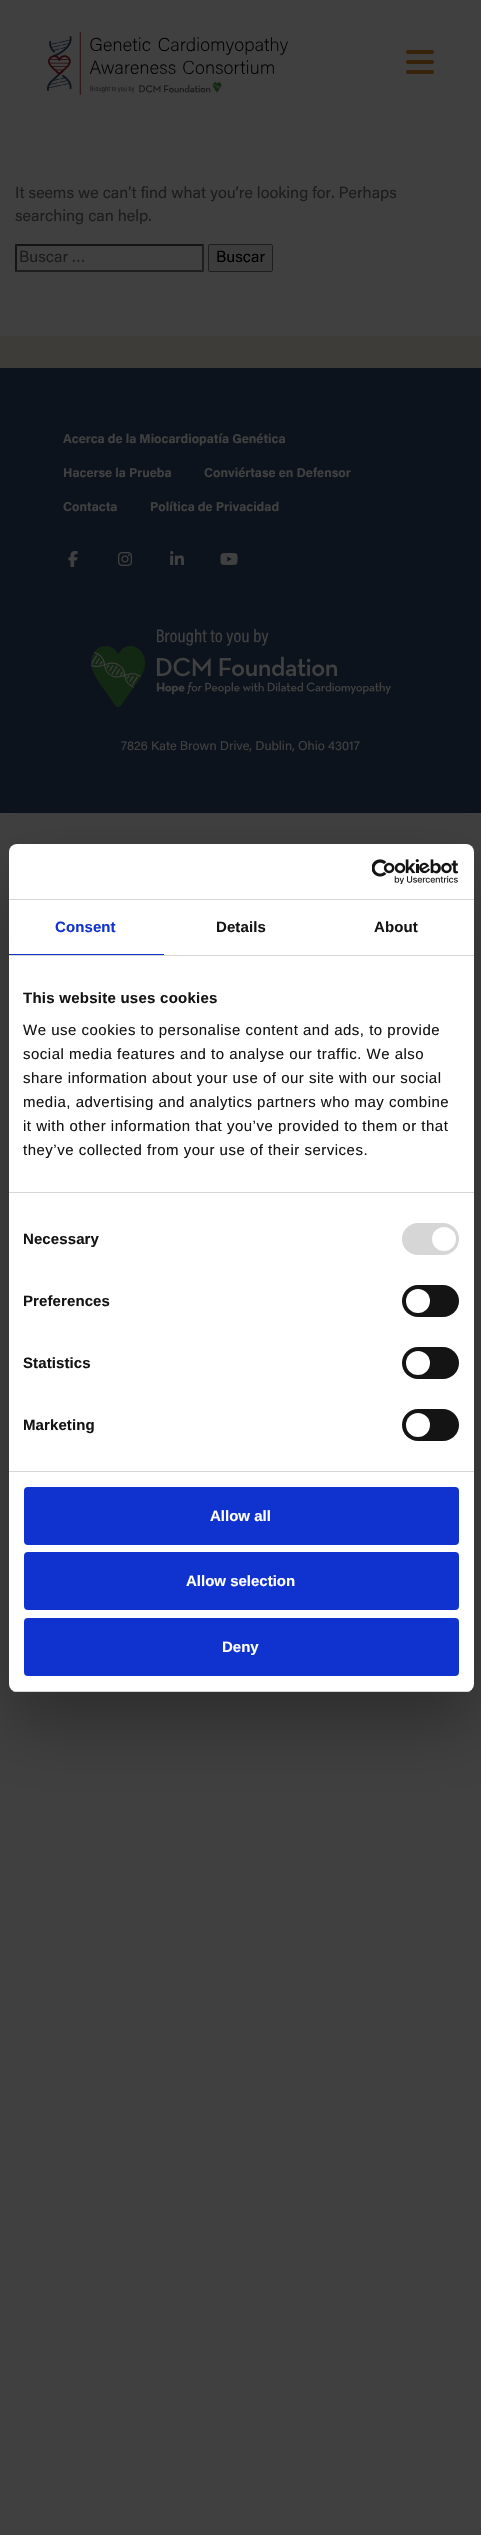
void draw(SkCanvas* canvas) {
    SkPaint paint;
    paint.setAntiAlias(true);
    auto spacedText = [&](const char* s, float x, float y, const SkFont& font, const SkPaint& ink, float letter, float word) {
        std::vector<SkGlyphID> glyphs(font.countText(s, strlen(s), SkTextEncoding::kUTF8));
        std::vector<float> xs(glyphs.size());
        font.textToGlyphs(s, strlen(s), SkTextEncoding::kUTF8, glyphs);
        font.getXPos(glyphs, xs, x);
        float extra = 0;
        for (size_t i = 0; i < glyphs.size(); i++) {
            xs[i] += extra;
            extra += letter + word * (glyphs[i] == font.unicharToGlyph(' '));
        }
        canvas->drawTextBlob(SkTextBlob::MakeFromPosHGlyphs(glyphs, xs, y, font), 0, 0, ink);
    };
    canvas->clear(0xFF404040);
    canvas->drawImageRect(SkImages::DeferredFromEncodedData(SkData::MakeFromFileName("img1.png")), SkRect::MakeXYWH(47, 32, 241, 63), SkSamplingOptions());
    canvas->drawImageRect(SkImages::DeferredFromEncodedData(SkData::MakeFromFileName("img2.png")), SkRect::MakeXYWH(406, 50, 28, 24), SkSamplingOptions());
    SkFont font1(fontMgr->matchFamilyStyle("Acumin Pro", SkFontStyle::Normal()), 16);
    font1.setSubpixel(true);
    paint.setColor(0xFF1C1C1C);
    canvas->drawString("It seems we can’t find what you’re looking for. Perhaps", 15, 198, font1, paint);
    canvas->drawString("searching can help.", 15, 221, font1, paint);
    paint.setColor(0xFF141414);
    canvas->drawPath(SkPathBuilder().moveTo(15, 244).lineTo(204, 244).lineTo(202, 246).lineTo(17, 246).close().detach(), paint);
    paint.setColor(0xFF1E1E1E);
    canvas->drawPath(SkPathBuilder().moveTo(204, 244).lineTo(204, 272).lineTo(202, 270).lineTo(202, 246).close().detach(), paint);
    canvas->drawPath(SkPathBuilder().moveTo(204, 272).lineTo(15, 272).lineTo(17, 270).lineTo(202, 270).close().detach(), paint);
    paint.setColor(0xFF141414);
    canvas->drawPath(SkPathBuilder().moveTo(15, 272).lineTo(15, 244).lineTo(17, 246).lineTo(17, 270).close().detach(), paint);
    paint.setColor(0xFF1C1C1C);
    canvas->drawString("Buscar …", 19, 262, font1, paint);
    paint.setColor(0xFF3C3C3C);
    canvas->drawRoundRect(SkRect::MakeXYWH(208.5f, 244.5f, 64, 27), 1.5f, 1.5f, paint);
    paint.setStyle(SkPaint::kStroke_Style);
    paint.setStrokeWidth(1);
    paint.setColor(0xFF1E1E1E);
    canvas->drawRoundRect(SkRect::MakeXYWH(208.5f, 244.5f, 64, 27), 1.5f, 1.5f, paint);
    paint.setStyle(SkPaint::kFill_Style);
    paint.setColor(0xFF000000);
    canvas->drawString("Buscar", 216, 262, font1, paint);
    paint.setColor(0xFF3E3C39);
    canvas->drawRect(SkRect::MakeXYWH(0, 336, 481, 32), paint);
    paint.setColor(0xFF0D131D);
    canvas->drawRect(SkRect::MakeXYWH(0, 368, 481, 445), paint);
    SkFont font2(fontMgr->matchFamilyStyle("Acumin Pro", SkFontStyle::Bold()), 12.75f);
    font2.setSubpixel(true);
    paint.setColor(0xFF404040);
    canvas->drawString("Acerca de la Miocardiopatía Genética", 63, 443, font2, paint);
    canvas->drawString("Hacerse la Prueba", 63, 477, font2, paint);
    canvas->drawString("Conviértase en Defensor", 204, 477, font2, paint);
    canvas->drawString("Contacta", 63, 511, font2, paint);
    canvas->drawString("Política de Privacidad", 150, 511, font2, paint);
    canvas->drawImageRect(SkImages::DeferredFromEncodedData(SkData::MakeFromFileName("img3.png")), SkRect::MakeXYWH(68, 551, 10, 16), SkSamplingOptions());
    canvas->drawImageRect(SkImages::DeferredFromEncodedData(SkData::MakeFromFileName("img4.png")), SkRect::MakeXYWH(118, 552, 14, 14), SkSamplingOptions());
    canvas->drawImageRect(SkImages::DeferredFromEncodedData(SkData::MakeFromFileName("img5.png")), SkRect::MakeXYWH(170, 551, 14, 14), SkSamplingOptions());
    canvas->drawImageRect(SkImages::DeferredFromEncodedData(SkData::MakeFromFileName("img6.png")), SkRect::MakeXYWH(220, 553, 18, 12), SkSamplingOptions());
    canvas->drawImageRect(SkImages::DeferredFromEncodedData(SkData::MakeFromFileName("img7.png")), SkRect::MakeXYWH(91, 629, 300, 78), SkSamplingOptions());
    SkFont font3(fontMgr->matchFamilyStyle("Acumin Pro", SkFontStyle::Normal()), 12.75f);
    font3.setSubpixel(true);
    canvas->drawString("7826 Kate Brown Drive, Dublin, Ohio 43017", 121, 750, font3, paint);
    paint.setColor(0x4D000000);
    paint.setMaskFilter(SkMaskFilter::MakeBlur(kNormal_SkBlurStyle, 34));
    canvas->drawRoundRect(SkRect::MakeXYWH(9, 876, 465, 848), 8, 8, paint);
    paint.setMaskFilter(nullptr);
    paint.setColor(0xFFFFFFFF);
    canvas->drawRoundRect(SkRect::MakeXYWH(9, 844, 465, 848), 8, 8, paint);
    paint.setColor(0xFFD6D6D6);
    canvas->drawRect(SkRect::MakeXYWH(9, 899, 465, 1), paint);
    canvas->drawImageRect(SkImages::DeferredFromEncodedData(SkData::MakeFromFileName("img8.png")), SkRect::MakeXYWH(372, 859, 87, 25), SkSamplingOptions());
    canvas->drawRect(SkRect::MakeXYWH(9, 955, 465, 1), paint);
    paint.setColor(0xFF1032CF);
    canvas->drawRect(SkRect::MakeXYWH(9, 954, 155, 1), paint);
    SkFont font4(fontMgr->matchFamilyStyle("Liberation Sans", SkFontStyle::Bold()), 15);
    font4.setSubpixel(true);
    spacedText("Consent", 55, 932, font4, paint, 0.1f, 0);
    paint.setColor(0xFF141414);
    spacedText("Details", 216, 932, font4, paint, 0.1f, 0);
    spacedText("About", 374, 932, font4, paint, 0.1f, 0);
    paint.setColor(0xFFD6D6D6);
    canvas->drawRect(SkRect::MakeXYWH(9, 1192, 465, 1), paint);
    paint.setColor(0xFF141414);
    spacedText("This website uses cookies", 23, 1003, font4, paint, 0.25f, 0);
    SkFont font5(fontMgr->matchFamilyStyle("Liberation Sans", SkFontStyle::Normal()), 15);
    font5.setSubpixel(true);
    spacedText("We use cookies to personalise content and ads, to provide", 23, 1035, font5, paint, 0.5f, 0);
    spacedText("social media features and to analyse our traffic. We also", 23, 1059, font5, paint, 0.5f, 0);
    spacedText("share information about your use of our site with our social", 23, 1083, font5, paint, 0.5f, 0);
    spacedText("media, advertising and analytics partners who may combine", 23, 1107, font5, paint, 0.5f, 0);
    spacedText("it with other information that you’ve provided to them or that", 23, 1131, font5, paint, 0.5f, 0);
    spacedText("they’ve collected from your use of their services.", 23, 1155, font5, paint, 0.5f, 0);
    paint.setColor(0xFFD6D6D6);
    canvas->drawRect(SkRect::MakeXYWH(9, 1471, 465, 1), paint);
    paint.setColor(0xFF141414);
    spacedText("Necessary", 23, 1244, font4, paint, 0.1f, 0);
    paint.setColor(0xFFD6D6D6);
    canvas->drawRoundRect(SkRect::MakeXYWH(402, 1223, 57, 32), 16, 16, paint);
    paint.setColor(0xFFFFFFFF);
    canvas->drawCircle(444, 1239, 12, paint);
    paint.setColor(0xFF141414);
    spacedText("Preferences", 23, 1306, font4, paint, 0.1f, 0);
    canvas->drawRoundRect(SkRect::MakeXYWH(402, 1285, 57, 32), 16, 16, paint);
    paint.setColor(0xFFFFFFFF);
    canvas->drawCircle(418, 1301, 12, paint);
    paint.setColor(0xFF141414);
    spacedText("Statistics", 23, 1368, font4, paint, 0.1f, 0);
    canvas->drawRoundRect(SkRect::MakeXYWH(402, 1347, 57, 32), 16, 16, paint);
    paint.setColor(0xFFFFFFFF);
    canvas->drawCircle(418, 1363, 12, paint);
    paint.setColor(0xFF141414);
    spacedText("Marketing", 23, 1430, font4, paint, 0.1f, 0);
    canvas->drawRoundRect(SkRect::MakeXYWH(402, 1409, 57, 32), 16, 16, paint);
    paint.setColor(0xFFFFFFFF);
    canvas->drawCircle(418, 1425, 12, paint);
    canvas->save();
    canvas->clipPath(SkPathBuilder().moveTo(17, 844).lineTo(466, 844).cubicTo(470.5f, 844, 474, 847.5f, 474, 852).lineTo(474, 1684).cubicTo(474, 1688.5f, 470.5f, 1692, 466, 1692).lineTo(17, 1692).cubicTo(12.5f, 1692, 9, 1688.5f, 9, 1684).lineTo(9, 852).cubicTo(9, 847.5f, 12.5f, 844, 17, 844).close().detach(), true);
    paint.setColor(0xFFD6D6D6);
    canvas->drawRect(SkRect::MakeXYWH(9, 1691, 465, 1), paint);
    canvas->restore();
    paint.setColor(0xFF1032CF);
    canvas->drawRoundRect(SkRect::MakeXYWH(25, 1488, 433, 56), 3, 3, paint);
    paint.setStyle(SkPaint::kStroke_Style);
    paint.setStrokeWidth(2);
    canvas->drawRoundRect(SkRect::MakeXYWH(25, 1488, 433, 56), 3, 3, paint);
    paint.setStyle(SkPaint::kFill_Style);
    paint.setColor(0xFFFFFFFF);
    canvas->drawString("Allow all", 210, 1521, font4, paint);
    paint.setColor(0xFF1032CF);
    canvas->drawRoundRect(SkRect::MakeXYWH(25, 1553, 433, 56), 3, 3, paint);
    paint.setStyle(SkPaint::kStroke_Style);
    canvas->drawRoundRect(SkRect::MakeXYWH(25, 1553, 433, 56), 3, 3, paint);
    paint.setStyle(SkPaint::kFill_Style);
    paint.setColor(0xFFFFFFFF);
    canvas->drawString("Allow selection", 186, 1586, font4, paint);
    paint.setColor(0xFF1032CF);
    canvas->drawRoundRect(SkRect::MakeXYWH(25, 1619, 433, 56), 3, 3, paint);
    paint.setStyle(SkPaint::kStroke_Style);
    canvas->drawRoundRect(SkRect::MakeXYWH(25, 1619, 433, 56), 3, 3, paint);
    paint.setStyle(SkPaint::kFill_Style);
    paint.setColor(0xFFFFFFFF);
    canvas->drawString("Deny", 222, 1652, font4, paint);
}
